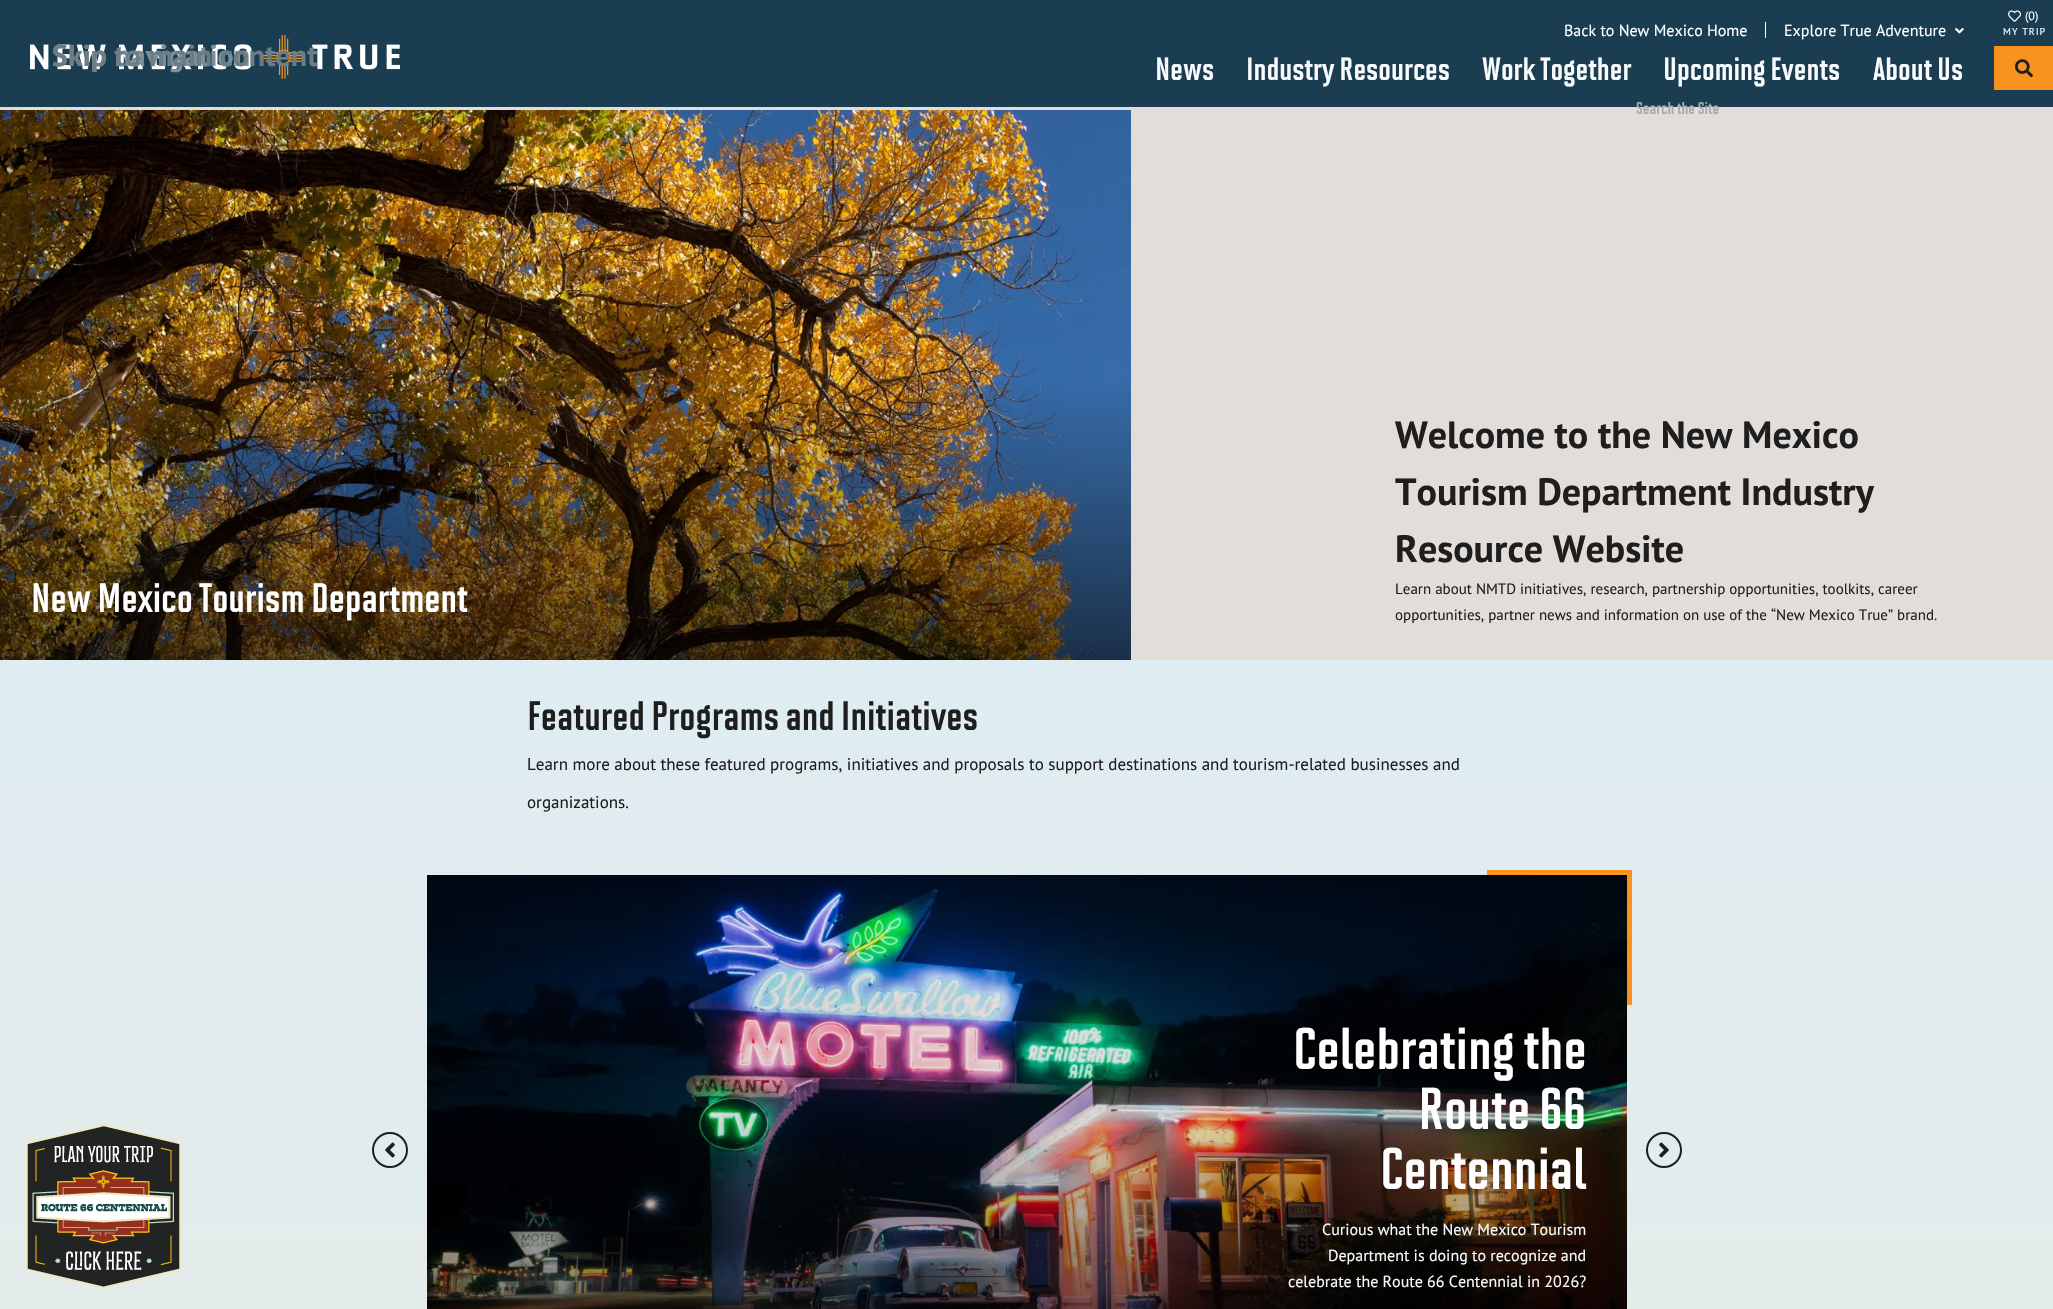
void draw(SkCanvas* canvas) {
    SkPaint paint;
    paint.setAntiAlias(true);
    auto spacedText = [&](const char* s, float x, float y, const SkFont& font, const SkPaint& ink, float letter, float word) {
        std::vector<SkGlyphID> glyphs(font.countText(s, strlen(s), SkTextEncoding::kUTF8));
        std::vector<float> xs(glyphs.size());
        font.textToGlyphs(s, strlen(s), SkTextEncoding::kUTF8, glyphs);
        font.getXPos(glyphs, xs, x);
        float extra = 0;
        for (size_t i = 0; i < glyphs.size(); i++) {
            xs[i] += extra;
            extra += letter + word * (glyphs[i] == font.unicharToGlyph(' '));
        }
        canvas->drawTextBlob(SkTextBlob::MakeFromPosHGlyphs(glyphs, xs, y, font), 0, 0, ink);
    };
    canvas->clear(0xFFFFFFFF);
    {
        const SkColor colors[] = {0xFFDFECF1, 0xFFDFECF1, 0xFFF4EDD8, 0xFFEADECF};
        const float stops[] = {0, 0.13f, 0.56f, 1};
        const SkPoint ends[] = {{1026, 0}, {1027, 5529}};
        paint.setShader(SkGradientShader::MakeLinear(ends, colors, stops, 4, SkTileMode::kClamp));
        paint.setAlpha(255);
    }
    canvas->drawRect(SkRect::MakeXYWH(0, 660, 2053, 649), paint);
    paint.setShader(nullptr);
    paint.setColor(0xFF1A3D51);
    canvas->drawRect(SkRect::MakeXYWH(0, 0, 2053, 107), paint);
    canvas->drawImageRect(SkImages::DeferredFromEncodedData(SkData::MakeFromFileName("img1.png")), SkRect::MakeXYWH(30, 35, 370, 44), SkSamplingOptions());
    canvas->drawImageRect(SkImages::DeferredFromEncodedData(SkData::MakeFromFileName("img2.png")), SkRect::MakeXYWH(2008, 10, 13, 12), SkSamplingOptions());
    SkFont font1(fontMgr->matchFamilyStyle("PT Sans", SkFontStyle::Normal()), 12);
    font1.setSubpixel(true);
    paint.setColor(0xFFF8FAFC);
    canvas->drawString("(0)", 2025, 20, font1, paint);
    SkFont font2(fontMgr->matchFamilyStyle("PT Sans", SkFontStyle::Normal()), 10);
    font2.setSubpixel(true);
    spacedText("MY TRIP", 2003, 35, font2, paint, 1, 0);
    paint.setColor(0xFFF7931E);
    canvas->drawRect(SkRect::MakeXYWH(1994, 46, 59, 44), paint);
    canvas->drawImageRect(SkImages::DeferredFromEncodedData(SkData::MakeFromFileName("img3.png")), SkRect::MakeXYWH(2015, 59, 18, 19), SkSamplingOptions());
    paint.setColor(0xFFE3DDD9);
    canvas->drawRect(SkRect::MakeXYWH(0, 107, 2053, 553), paint);
    SkFont font3(fontMgr->matchFamilyStyle("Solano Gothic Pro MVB", SkFontStyle::Bold()), 17);
    font3.setSubpixel(true);
    paint.setColor(0xFFA4ABAE);
    canvas->drawString("Search the Site", 1636, 114, font3, paint);
    paint.setColor(0xFFFFFFFF);
    canvas->drawRect(SkRect::MakeXYWH(1765, 22, 1, 16), paint);
    SkFont font4(fontMgr->matchFamilyStyle("PT Sans", SkFontStyle::Normal()), 16);
    font4.setSubpixel(true);
    canvas->drawString("Back to New Mexico Home", 1564, 36, font4, paint);
    canvas->drawString("Explore True Adventure", 1784, 36, font4, paint);
    canvas->drawImageRect(SkImages::DeferredFromEncodedData(SkData::MakeFromFileName("img4.png")), SkRect::MakeXYWH(1955, 28, 9, 6), SkSamplingOptions());
    SkFont font5(fontMgr->matchFamilyStyle("Solano Gothic Pro MVB", SkFontStyle::Bold()), 32);
    font5.setSubpixel(true);
    paint.setColor(0xFFF8FAFC);
    canvas->drawString("News", 1155, 80, font5, paint);
    canvas->drawString("Industry Resources", 1246, 80, font5, paint);
    canvas->drawString("Work Together", 1482, 80, font5, paint);
    canvas->drawString("Upcoming Events", 1663, 80, font5, paint);
    canvas->drawString("About Us", 1873, 80, font5, paint);
    canvas->drawImageRect(SkImages::DeferredFromEncodedData(SkData::MakeFromFileName("img5.png")), SkRect::MakeXYWH(0, 110, 1131, 550), SkSamplingOptions());
    SkFont font6(fontMgr->matchFamilyStyle("Solano Gothic Pro MVB", SkFontStyle::Bold()), 41);
    font6.setSubpixel(true);
    paint.setColor(0xFFFFFFFF);
    canvas->drawString("New Mexico Tourism Department", 31, 612, font6, paint);
    SkFont font7(fontMgr->matchFamilyStyle("PT Sans", SkFontStyle::Bold()), 38);
    font7.setSubpixel(true);
    paint.setColor(0xFF1E1E1E);
    canvas->drawString("Welcome to the New Mexico", 1395, 448, font7, paint);
    canvas->drawString("Tourism Department Industry", 1395, 505, font7, paint);
    canvas->drawString("Resource Website", 1395, 562, font7, paint);
    SkFont font8(fontMgr->matchFamilyStyle("PT Sans", SkFontStyle::Normal()), 15);
    font8.setSubpixel(true);
    canvas->drawString("Learn about NMTD initiatives, research, partnership opportunities, toolkits, career", 1395, 594, font8, paint);
    canvas->drawString("opportunities, partner news and information on use of the “New Mexico True” brand.", 1395, 620, font8, paint);
    canvas->drawString("Featured Programs and Initiatives", 527, 730, font6, paint);
    SkFont font9(fontMgr->matchFamilyStyle("PT Sans", SkFontStyle::Normal()), 17);
    font9.setSubpixel(true);
    canvas->drawString("Learn more about these featured programs, initiatives and proposals to support destinations and tourism-related businesses and", 527, 770, font9, paint);
    canvas->drawString("organizations.", 527, 808, font9, paint);
    paint.setColor(0xFFF7931E);
    canvas->drawRect(SkRect::MakeXYWH(1487, 870, 145, 135), paint);
    canvas->drawImageRect(SkImages::DeferredFromEncodedData(SkData::MakeFromFileName("img6.png")), SkRect::MakeXYWH(427, 875, 1200, 434), SkSamplingOptions());
    SkFont font10(fontMgr->matchFamilyStyle("Solano Gothic Pro MVB", SkFontStyle::Bold()), 59);
    font10.setSubpixel(true);
    paint.setColor(0xFFFFFFFF);
    canvas->drawString("Celebrating the", 1293, 1069, font10, paint);
    canvas->drawString("Route 66", 1418, 1129, font10, paint);
    canvas->drawString("Centennial", 1380, 1189, font10, paint);
    paint.setColor(0xFFF8FAFC);
    canvas->drawString("Curious what the New Mexico Tourism", 1322, 1235, font4, paint);
    canvas->drawString("Department is doing to recognize and", 1328, 1261, font4, paint);
    canvas->drawString("celebrate the Route 66 Centennial in 2026?", 1288, 1287, font4, paint);
    paint.setStyle(SkPaint::kStroke_Style);
    paint.setStrokeWidth(2);
    paint.setColor(0xFF1E1E1E);
    canvas->drawCircle(390, 1150, 17, paint);
    canvas->drawImageRect(SkImages::DeferredFromEncodedData(SkData::MakeFromFileName("img7.png")), SkRect::MakeXYWH(385, 1142, 10, 16), SkSamplingOptions());
    canvas->drawCircle(1664, 1150, 17, paint);
    canvas->drawImageRect(SkImages::DeferredFromEncodedData(SkData::MakeFromFileName("img8.png")), SkRect::MakeXYWH(1659, 1142, 10, 16), SkSamplingOptions());
    SkFont font11(fontMgr->matchFamilyStyle("PT Sans", SkFontStyle::Bold()), 30);
    font11.setSubpixel(true);
    paint.setStyle(SkPaint::kFill_Style);
    paint.setColor(0xFF7B8F9A);
    canvas->drawString("Skip navigation", 52, 66, font11, paint);
    paint.setColor(0xFF6C7D84);
    canvas->drawString("Skip to main content", 52, 66, font11, paint);
    canvas->drawImageRect(SkImages::DeferredFromEncodedData(SkData::MakeFromFileName("img9.png")), SkRect::MakeXYWH(25, 1124, 157, 165), SkSamplingOptions());
}
